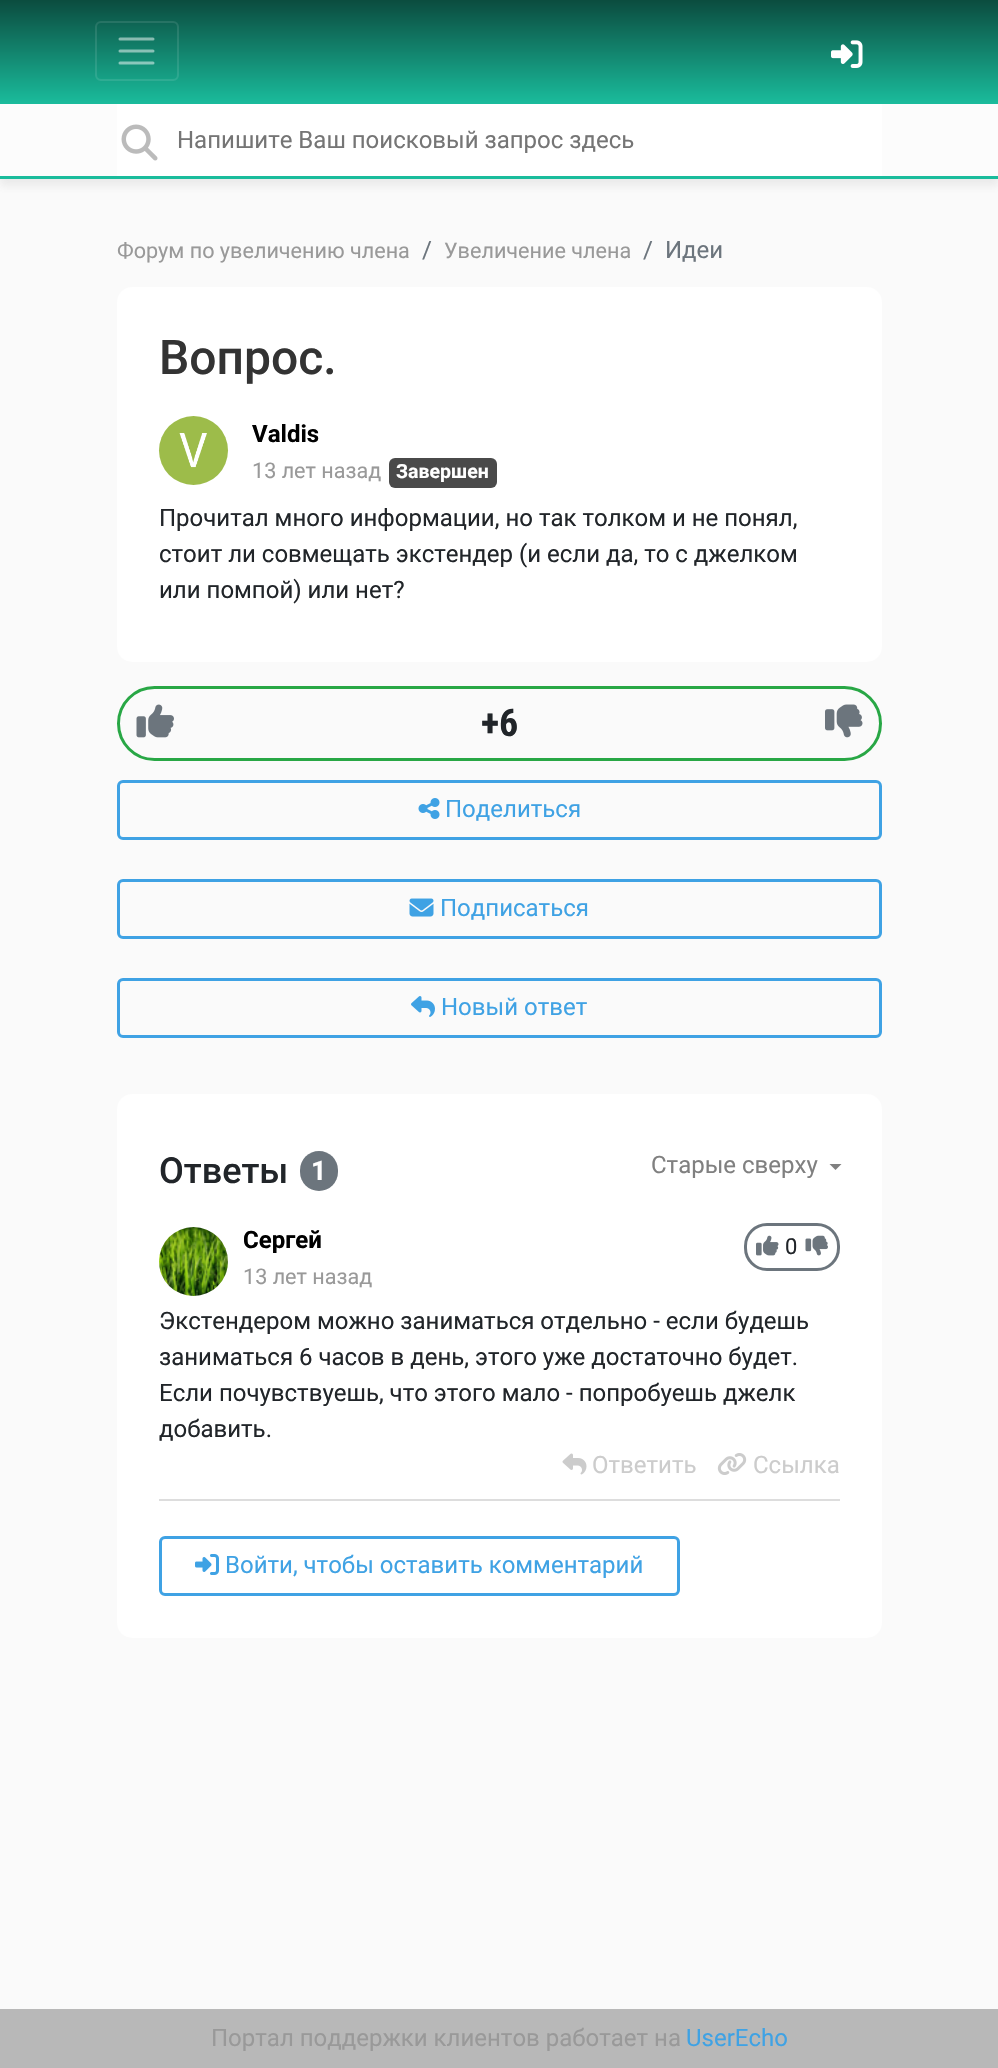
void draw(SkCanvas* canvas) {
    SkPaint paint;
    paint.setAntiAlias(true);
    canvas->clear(0xFFFAFAFA);
    {
        const SkColor colors[] = {0xFF0B4C3F, 0xFF1ABC9C};
        const float stops[] = {0, 1};
        const SkPoint ends[] = {{500, 0}, {500, 104}};
        paint.setShader(SkGradientShader::MakeLinear(ends, colors, stops, 2, SkTileMode::kClamp));
        paint.setAlpha(255);
    }
    canvas->drawRect(SkRect::MakeXYWH(0, 0, 998, 104), paint);
    paint.setStyle(SkPaint::kStroke_Style);
    paint.setStrokeWidth(2);
    paint.setShader(nullptr);
    paint.setColor(0x1AFFFFFF);
    canvas->drawRoundRect(SkRect::MakeXYWH(96, 22, 82, 58), 5, 5, paint);
    paint.setStrokeWidth(3);
    paint.setStrokeCap(SkPaint::kRound_Cap);
    paint.setColor(0x80FFFFFF);
    canvas->drawPath(SkPathBuilder().moveTo(120, 39).lineTo(153, 39).moveTo(120, 51).lineTo(153, 51).moveTo(120, 63).lineTo(153, 63).detach(), paint);
    canvas->drawImageRect(SkImages::DeferredFromEncodedData(SkData::MakeFromFileName("img1.png")), SkRect::MakeXYWH(831, 40, 32, 28), SkSamplingOptions());
    paint.setStyle(SkPaint::kFill_Style);
    paint.setColor(0x1A646464);
    paint.setMaskFilter(SkMaskFilter::MakeBlur(kNormal_SkBlurStyle, 4));
    canvas->drawRect(SkRect::MakeXYWH(0, 111, 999, 75), paint);
    paint.setMaskFilter(nullptr);
    paint.setColor(0xFFFCFCFC);
    canvas->drawRect(SkRect::MakeXYWH(0, 104, 998, 72), paint);
    paint.setColor(0xFF1ABC9C);
    canvas->drawRect(SkRect::MakeXYWH(0, 176, 998, 3), paint);
    paint.setColor(0xFFFFFFFF);
    canvas->drawRect(SkRect::MakeXYWH(117, 104, 765, 72), paint);
    canvas->drawImageRect(SkImages::DeferredFromEncodedData(SkData::MakeFromFileName("img2.png")), SkRect::MakeXYWH(121, 124, 37, 37), SkSamplingOptions());
    SkFont font1(fontMgr->matchFamilyStyle("Roboto", SkFontStyle::Normal()), 24);
    font1.setSubpixel(true);
    paint.setColor(0xFF757575);
    canvas->drawString("Напишите Ваш поисковый запрос здесь", 177, 148, font1, paint);
    SkFont font2(fontMgr->matchFamilyStyle("Roboto", SkFontStyle::Normal()), 21.6f);
    font2.setSubpixel(true);
    paint.setColor(0xFF999999);
    canvas->drawString("Форум по увеличению члена", 117, 258, font2, paint);
    paint.setColor(0xFF6C757D);
    canvas->drawString("/", 422, 258, font1, paint);
    paint.setColor(0xFF999999);
    canvas->drawString("Увеличение члена", 444, 258, font2, paint);
    paint.setColor(0xFF6C757D);
    canvas->drawString("/", 643, 258, font1, paint);
    canvas->drawString("Идеи", 665, 258, font1, paint);
    paint.setColor(0xFFFFFFFF);
    canvas->drawRoundRect(SkRect::MakeXYWH(117, 287, 765, 375), 15, 15, paint);
    SkFont font3(fontMgr->matchFamilyStyle("Roboto", SkFontStyle(500, SkFontStyle::kNormal_Width, SkFontStyle::kUpright_Slant)), 48);
    font3.setSubpixel(true);
    paint.setColor(0xFF333333);
    canvas->drawString("Вопрос.", 159, 374, font3, paint);
    paint.setColor(0xFF9DBC4A);
    canvas->drawCircle(193.5f, 450.5f, 34.5f, paint);
    canvas->drawImageRect(SkImages::DeferredFromEncodedData(SkData::MakeFromFileName("img3.png")), SkRect::MakeXYWH(179, 433, 28, 35), SkSamplingOptions());
    SkFont font4(fontMgr->matchFamilyStyle("Roboto", SkFontStyle::Bold()), 24);
    font4.setSubpixel(true);
    paint.setColor(0xFF000000);
    canvas->drawString("Valdis", 252, 442, font4, paint);
    paint.setColor(0xFF999999);
    canvas->drawString("13 лет назад", 252, 478, font2, paint);
    paint.setColor(0xFF4A4A4A);
    canvas->drawRoundRect(SkRect::MakeXYWH(389, 458, 108, 30), 6, 6, paint);
    SkFont font5(fontMgr->matchFamilyStyle("Roboto", SkFontStyle::Bold()), 19.5f);
    font5.setSubpixel(true);
    paint.setColor(0xFFFFFFFF);
    canvas->drawString("Завершен", 396, 478, font5, paint);
    paint.setColor(0xFF212529);
    canvas->drawString("Прочитал много информации, но так толком и не понял,", 159, 526, font1, paint);
    canvas->drawString("стоит ли совмещать экстендер (и если да, то с джелком", 159, 562, font1, paint);
    canvas->drawString("или помпой) или нет?", 159, 598, font1, paint);
    paint.setStyle(SkPaint::kStroke_Style);
    paint.setStrokeCap(SkPaint::kButt_Cap);
    paint.setColor(0xFF28A745);
    canvas->drawRoundRect(SkRect::MakeXYWH(118.5f, 687.5f, 762, 72), 36, 36, paint);
    canvas->drawImageRect(SkImages::DeferredFromEncodedData(SkData::MakeFromFileName("img4.png")), SkRect::MakeXYWH(136, 704, 38, 34), SkSamplingOptions());
    SkFont font6(fontMgr->matchFamilyStyle("Roboto Condensed", SkFontStyle::Bold()), 38);
    font6.setSubpixel(true);
    paint.setStyle(SkPaint::kFill_Style);
    paint.setColor(0xFF212529);
    canvas->drawString("+6", 481, 736, font6, paint);
    canvas->drawImageRect(SkImages::DeferredFromEncodedData(SkData::MakeFromFileName("img5.png")), SkRect::MakeXYWH(825, 704, 38, 34), SkSamplingOptions());
    paint.setStyle(SkPaint::kStroke_Style);
    paint.setColor(0xFF3FA2E4);
    canvas->drawRoundRect(SkRect::MakeXYWH(118.5f, 781.5f, 762, 57), 4.5f, 4.5f, paint);
    canvas->drawImageRect(SkImages::DeferredFromEncodedData(SkData::MakeFromFileName("img6.png")), SkRect::MakeXYWH(418, 798, 22, 21), SkSamplingOptions());
    paint.setStyle(SkPaint::kFill_Style);
    canvas->drawString("Поделиться", 445, 817, font1, paint);
    paint.setStyle(SkPaint::kStroke_Style);
    canvas->drawRoundRect(SkRect::MakeXYWH(118.5f, 880.5f, 762, 57), 4.5f, 4.5f, paint);
    canvas->drawImageRect(SkImages::DeferredFromEncodedData(SkData::MakeFromFileName("img7.png")), SkRect::MakeXYWH(409, 898, 25, 19), SkSamplingOptions());
    paint.setStyle(SkPaint::kFill_Style);
    canvas->drawString("Подписаться", 440, 916, font1, paint);
    paint.setStyle(SkPaint::kStroke_Style);
    canvas->drawRoundRect(SkRect::MakeXYWH(118.5f, 979.5f, 762, 57), 4.5f, 4.5f, paint);
    canvas->drawImageRect(SkImages::DeferredFromEncodedData(SkData::MakeFromFileName("img8.png")), SkRect::MakeXYWH(411, 996, 24, 21), SkSamplingOptions());
    paint.setStyle(SkPaint::kFill_Style);
    canvas->drawString("Новый ответ", 441, 1015, font1, paint);
    paint.setColor(0xFFFFFFFF);
    canvas->drawRoundRect(SkRect::MakeXYWH(117, 1094, 765, 544), 15, 15, paint);
    SkFont font7(fontMgr->matchFamilyStyle("Roboto", SkFontStyle(500, SkFontStyle::kNormal_Width, SkFontStyle::kUpright_Slant)), 36);
    font7.setSubpixel(true);
    paint.setColor(0xFF212529);
    canvas->drawString("Ответы", 159, 1183, font7, paint);
    paint.setColor(0xFF6C757D);
    canvas->drawRoundRect(SkRect::MakeXYWH(300, 1151, 38, 40), 19, 19, paint);
    SkFont font8(fontMgr->matchFamilyStyle("Roboto", SkFontStyle::Bold()), 27);
    font8.setSubpixel(true);
    paint.setColor(0xFFFFFFFF);
    canvas->drawString("1", 311, 1180, font8, paint);
    paint.setColor(0xFF808080);
    canvas->drawString("Старые сверху", 651, 1173, font1, paint);
    canvas->drawPath(SkPathBuilder().moveTo(829.5f, 1164).lineTo(841.5f, 1164).lineTo(835.5f, 1170).close().detach(), paint);
    paint.setColor(0xFFDDDDDD);
    canvas->drawRect(SkRect::MakeXYWH(159, 1499, 681, 2), paint);
    canvas->drawImageRect(SkImages::DeferredFromEncodedData(SkData::MakeFromFileName("img9.png")), SkRect::MakeXYWH(159, 1227, 69, 69), SkSamplingOptions());
    paint.setColor(0xFF000000);
    canvas->drawString("Cеpгей", 243, 1248, font4, paint);
    paint.setColor(0xFF999999);
    canvas->drawString("13 лет назад", 243, 1284, font2, paint);
    paint.setStyle(SkPaint::kStroke_Style);
    paint.setColor(0xFF6C757D);
    canvas->drawRoundRect(SkRect::MakeXYWH(745.5f, 1224.5f, 93, 45), 21.5f, 21.5f, paint);
    canvas->drawImageRect(SkImages::DeferredFromEncodedData(SkData::MakeFromFileName("img10.png")), SkRect::MakeXYWH(756, 1235, 23, 21), SkSamplingOptions());
    SkFont font9(fontMgr->matchFamilyStyle("Roboto", SkFontStyle::Normal()), 22);
    font9.setSubpixel(true);
    paint.setStyle(SkPaint::kFill_Style);
    paint.setColor(0xFF212529);
    canvas->drawString("0", 785, 1254, font9, paint);
    canvas->drawImageRect(SkImages::DeferredFromEncodedData(SkData::MakeFromFileName("img11.png")), SkRect::MakeXYWH(805, 1235, 23, 21), SkSamplingOptions());
    canvas->drawString("Экстендером можно заниматься отдельно - если будешь", 159, 1329, font1, paint);
    canvas->drawString("заниматься 6 часов в день, этого уже достаточно будет.", 159, 1365, font1, paint);
    canvas->drawString("Если почувствуешь, что этого мало - попробуешь джелк", 159, 1401, font1, paint);
    canvas->drawString("добавить.", 159, 1437, font1, paint);
    canvas->drawImageRect(SkImages::DeferredFromEncodedData(SkData::MakeFromFileName("img12.png")), SkRect::MakeXYWH(562, 1453, 25, 22), SkSamplingOptions());
    paint.setColor(0xFFCCCCCC);
    canvas->drawString("Ответить", 592, 1473, font1, paint);
    canvas->drawImageRect(SkImages::DeferredFromEncodedData(SkData::MakeFromFileName("img13.png")), SkRect::MakeXYWH(717, 1453, 30, 22), SkSamplingOptions());
    canvas->drawString("Ссылка", 753, 1473, font1, paint);
    paint.setStyle(SkPaint::kStroke_Style);
    paint.setColor(0xFF3FA2E4);
    canvas->drawRoundRect(SkRect::MakeXYWH(160.5f, 1537.5f, 518, 57), 4.5f, 4.5f, paint);
    canvas->drawImageRect(SkImages::DeferredFromEncodedData(SkData::MakeFromFileName("img14.png")), SkRect::MakeXYWH(195, 1554, 24, 21), SkSamplingOptions());
    paint.setStyle(SkPaint::kFill_Style);
    canvas->drawString("Войти, чтобы оставить комментарий", 225, 1573, font1, paint);
    paint.setColor(0xFFB8B8B8);
    canvas->drawRect(SkRect::MakeXYWH(0, 2009, 998, 59), paint);
    paint.setColor(0xFF999999);
    canvas->drawString("Портал поддержки клиентов работает на", 211, 2046, font1, paint);
    paint.setColor(0xFF3FA2E4);
    canvas->drawString("UserEcho", 686, 2046, font1, paint);
}
